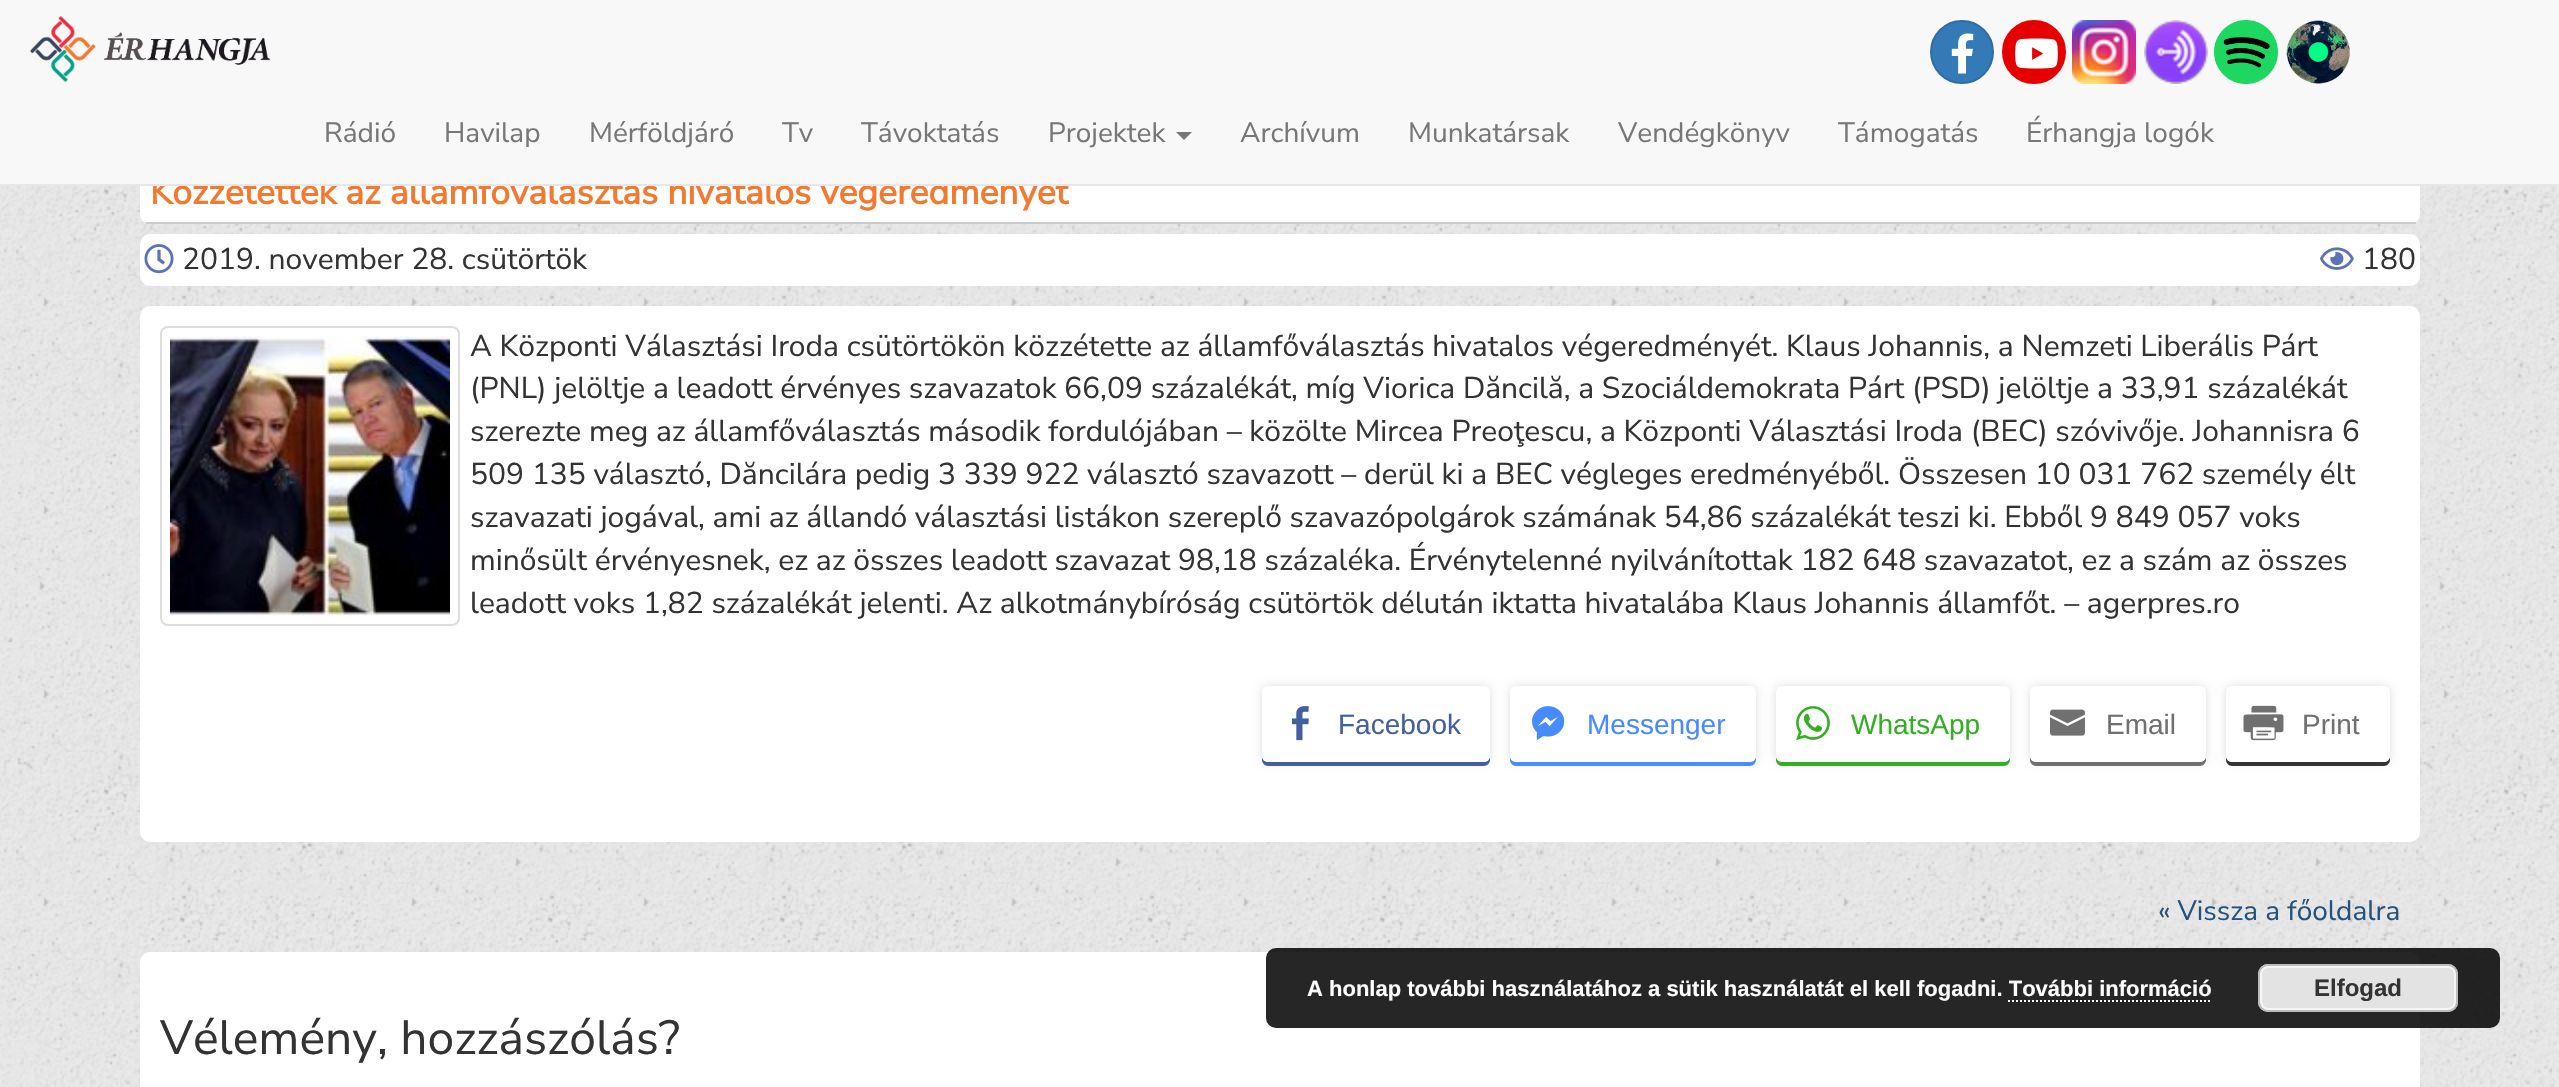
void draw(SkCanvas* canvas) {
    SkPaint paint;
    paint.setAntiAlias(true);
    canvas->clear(0xFFFFFFFF);
    canvas->drawImageRect(SkImages::DeferredFromEncodedData(SkData::MakeFromFileName("img1.png")), SkRect::MakeXYWH(0, 186, 2559, 901), SkSamplingOptions());
    paint.setColor(0xFFFFFFFF);
    canvas->drawRoundRect(SkRect::MakeXYWH(140, 164, 2280, 60), 10, 10, paint);
    SkFont font1(fontMgr->matchFamilyStyle("Nunito Sans", SkFontStyle::Bold()), 35.45f);
    font1.setSubpixel(true);
    paint.setColor(0xFFF47930);
    canvas->drawString("Közzétették az államfőválasztás hivatalos végeredményét", 150, 204, font1, paint);
    paint.setColor(0xFFF8F8F8);
    canvas->drawRect(SkRect::MakeXYWH(0, 0, 2559, 184), paint);
    paint.setColor(0xFFE7E7E7);
    canvas->drawRect(SkRect::MakeXYWH(0, 184, 2559, 2), paint);
    canvas->drawImageRect(SkImages::DeferredFromEncodedData(SkData::MakeFromFileName("img2.png")), SkRect::MakeXYWH(30, 16, 240, 66), SkSamplingOptions());
    paint.setColor(0xFF337AB7);
    canvas->drawCircle(1962, 52, 31, paint);
    paint.setStyle(SkPaint::kStroke_Style);
    paint.setStrokeWidth(2);
    paint.setColor(0xFF2E6DA4);
    canvas->drawCircle(1962, 52, 31, paint);
    canvas->drawImageRect(SkImages::DeferredFromEncodedData(SkData::MakeFromFileName("img3.png")), SkRect::MakeXYWH(1951, 33, 23, 41), SkSamplingOptions());
    paint.setStyle(SkPaint::kFill_Style);
    paint.setColor(0xFFE60000);
    canvas->drawCircle(2034, 52, 31, paint);
    paint.setStyle(SkPaint::kStroke_Style);
    canvas->drawCircle(2034, 52, 31, paint);
    canvas->drawImageRect(SkImages::DeferredFromEncodedData(SkData::MakeFromFileName("img4.png")), SkRect::MakeXYWH(2015, 38, 43, 31), SkSamplingOptions());
    canvas->drawImageRect(SkImages::DeferredFromEncodedData(SkData::MakeFromFileName("img5.png")), SkRect::MakeXYWH(2072, 20, 64, 64), SkSamplingOptions());
    canvas->drawImageRect(SkImages::DeferredFromEncodedData(SkData::MakeFromFileName("img6.png")), SkRect::MakeXYWH(2144, 20, 64, 64), SkSamplingOptions());
    canvas->drawImageRect(SkImages::DeferredFromEncodedData(SkData::MakeFromFileName("img7.png")), SkRect::MakeXYWH(2214, 20, 64, 64), SkSamplingOptions());
    canvas->drawImageRect(SkImages::DeferredFromEncodedData(SkData::MakeFromFileName("img8.png")), SkRect::MakeXYWH(2286, 20, 64, 64), SkSamplingOptions());
    SkFont font2(fontMgr->matchFamilyStyle("Nunito Sans", SkFontStyle::Normal()), 28);
    font2.setSubpixel(true);
    paint.setStyle(SkPaint::kFill_Style);
    paint.setColor(0xFF777777);
    canvas->drawString("Rádió", 324, 142, font2, paint);
    canvas->drawString("Havilap", 444, 142, font2, paint);
    canvas->drawString("Mérföldjáró", 589, 142, font2, paint);
    canvas->drawString("Tv", 782, 142, font2, paint);
    canvas->drawString("Távoktatás", 861, 142, font2, paint);
    canvas->drawString("Projektek", 1048, 142, font2, paint);
    canvas->drawPath(SkPathBuilder().moveTo(1176, 132).lineTo(1192, 132).lineTo(1184, 140).close().detach(), paint);
    canvas->drawString("Archívum", 1240, 142, font2, paint);
    canvas->drawString("Munkatársak", 1408, 142, font2, paint);
    canvas->drawString("Vendégkönyv", 1618, 142, font2, paint);
    canvas->drawString("Támogatás", 1838, 142, font2, paint);
    canvas->drawString("Érhangja logók", 2026, 142, font2, paint);
    paint.setColor(0xFFCCCCCC);
    canvas->drawRect(SkRect::MakeXYWH(146, 222, 2270, 2), paint);
    paint.setColor(0xFFFFFFFF);
    canvas->drawRoundRect(SkRect::MakeXYWH(140, 234, 2280, 52), 10, 10, paint);
    canvas->drawImageRect(SkImages::DeferredFromEncodedData(SkData::MakeFromFileName("img9.png")), SkRect::MakeXYWH(144, 244, 30, 30), SkSamplingOptions());
    SkFont font3(fontMgr->matchFamilyStyle("Nunito Sans", SkFontStyle::Normal()), 30);
    font3.setSubpixel(true);
    paint.setColor(0xFF333333);
    canvas->drawString("2019. november 28. csütörtök", 182, 269, font3, paint);
    canvas->drawImageRect(SkImages::DeferredFromEncodedData(SkData::MakeFromFileName("img10.png")), SkRect::MakeXYWH(2320, 247, 34, 23), SkSamplingOptions());
    canvas->drawString("180", 2362, 269, font3, paint);
    paint.setColor(0xFFFFFFFF);
    canvas->drawRoundRect(SkRect::MakeXYWH(140, 306, 2280, 536), 10, 10, paint);
    paint.setStyle(SkPaint::kStroke_Style);
    paint.setColor(0xFFDDDDDD);
    canvas->drawRoundRect(SkRect::MakeXYWH(161, 327, 298, 298), 7, 7, paint);
    canvas->drawImageRect(SkImages::DeferredFromEncodedData(SkData::MakeFromFileName("img11.png")), SkRect::MakeXYWH(170, 336, 280, 280), SkSamplingOptions());
    paint.setStyle(SkPaint::kFill_Style);
    paint.setColor(0xFF333333);
    canvas->drawString("A Központi Választási Iroda csütörtökön közzétette az államfőválasztás hivatalos végeredményét. Klaus Johannis, a Nemzeti Liberális Párt", 470, 356, font3, paint);
    canvas->drawString("(PNL) jelöltje a leadott érvényes szavazatok 66,09 százalékát, míg Viorica Dăncilă, a Szociáldemokrata Párt (PSD) jelöltje a 33,91 százalékát", 470, 398, font3, paint);
    canvas->drawString("szerezte meg az államfőválasztás második fordulójában – közölte Mircea Preoţescu, a Központi Választási Iroda (BEC) szóvivője. Johannisra 6", 470, 441, font3, paint);
    canvas->drawString("509 135 választó, Dăncilára pedig 3 339 922 választó szavazott – derül ki a BEC végleges eredményéből. Összesen 10 031 762 személy élt", 470, 484, font3, paint);
    canvas->drawString("szavazati jogával, ami az állandó választási listákon szereplő szavazópolgárok számának 54,86 százalékát teszi ki. Ebből 9 849 057 voks", 470, 527, font3, paint);
    canvas->drawString("minősült érvényesnek, ez az összes leadott szavazat 98,18 százaléka. Érvénytelenné nyilvánítottak 182 648 szavazatot, ez a szám az összes", 470, 570, font3, paint);
    canvas->drawString("leadott voks 1,82 százalékát jelenti. Az alkotmánybíróság csütörtök délután iktatta hivatalába Klaus Johannis államfőt. – agerpres.ro", 470, 613, font3, paint);
    paint.setColor(0x21000000);
    paint.setMaskFilter(SkMaskFilter::MakeBlur(kNormal_SkBlurStyle, 5));
    canvas->drawRoundRect(SkRect::MakeXYWH(1262, 686, 228, 76), 6, 6, paint);
    paint.setMaskFilter(nullptr);
    paint.setColor(0xFF43609C);
    canvas->drawPath(SkPathBuilder().moveTo(1262, 756).lineTo(1262, 760).cubicTo(1262, 763, 1265, 766, 1268, 766).lineTo(1484, 766).cubicTo(1487, 766, 1490, 763, 1490, 760).lineTo(1490, 756).cubicTo(1490, 759, 1487, 762, 1484, 762).lineTo(1268, 762).cubicTo(1265, 762, 1262, 759, 1262, 756).close().detach(), paint);
    paint.setColor(0xFFFFFFFF);
    canvas->drawRoundRect(SkRect::MakeXYWH(1262, 686, 228, 76), 6, 6, paint);
    canvas->drawImageRect(SkImages::DeferredFromEncodedData(SkData::MakeFromFileName("img12.png")), SkRect::MakeXYWH(1292, 706, 17, 35), SkSamplingOptions());
    SkFont font4(fontMgr->matchFamilyStyle("Liberation Sans", SkFontStyle::Normal()), 28);
    font4.setSubpixel(true);
    paint.setColor(0xFF43609C);
    canvas->drawString("Facebook", 1338, 734, font4, paint);
    paint.setColor(0x21000000);
    paint.setMaskFilter(SkMaskFilter::MakeBlur(kNormal_SkBlurStyle, 5));
    canvas->drawRoundRect(SkRect::MakeXYWH(1510, 686, 246, 76), 6, 6, paint);
    paint.setMaskFilter(nullptr);
    paint.setColor(0xFF468BFF);
    canvas->drawPath(SkPathBuilder().moveTo(1510, 756).lineTo(1510, 760).cubicTo(1510, 763, 1513, 766, 1516, 766).lineTo(1750, 766).cubicTo(1753, 766, 1756, 763, 1756, 760).lineTo(1756, 756).cubicTo(1756, 759, 1753, 762, 1750, 762).lineTo(1516, 762).cubicTo(1513, 762, 1510, 759, 1510, 756).close().detach(), paint);
    paint.setColor(0xFFFFFFFF);
    canvas->drawRoundRect(SkRect::MakeXYWH(1510, 686, 246, 76), 6, 6, paint);
    canvas->drawImageRect(SkImages::DeferredFromEncodedData(SkData::MakeFromFileName("img13.png")), SkRect::MakeXYWH(1532, 706, 33, 34), SkSamplingOptions());
    paint.setColor(0xFF468BFF);
    canvas->drawString("Messenger", 1587, 734, font4, paint);
    paint.setColor(0x21000000);
    paint.setMaskFilter(SkMaskFilter::MakeBlur(kNormal_SkBlurStyle, 5));
    canvas->drawRoundRect(SkRect::MakeXYWH(1776, 686, 234, 76), 6, 6, paint);
    paint.setMaskFilter(nullptr);
    paint.setColor(0xFF34AF23);
    canvas->drawPath(SkPathBuilder().moveTo(1776, 756).lineTo(1776, 760).cubicTo(1776, 763, 1779, 766, 1782, 766).lineTo(2004, 766).cubicTo(2007, 766, 2010, 763, 2010, 760).lineTo(2010, 756).cubicTo(2010, 759, 2007, 762, 2004, 762).lineTo(1782, 762).cubicTo(1779, 762, 1776, 759, 1776, 756).close().detach(), paint);
    paint.setColor(0xFFFFFFFF);
    canvas->drawRoundRect(SkRect::MakeXYWH(1776, 686, 234, 76), 6, 6, paint);
    canvas->drawImageRect(SkImages::DeferredFromEncodedData(SkData::MakeFromFileName("img14.png")), SkRect::MakeXYWH(1796, 706, 34, 35), SkSamplingOptions());
    paint.setColor(0xFF34AF23);
    canvas->drawString("WhatsApp", 1851, 734, font4, paint);
    paint.setColor(0x21000000);
    paint.setMaskFilter(SkMaskFilter::MakeBlur(kNormal_SkBlurStyle, 5));
    canvas->drawRoundRect(SkRect::MakeXYWH(2030, 686, 176, 76), 6, 6, paint);
    paint.setMaskFilter(nullptr);
    paint.setColor(0xFF717070);
    canvas->drawPath(SkPathBuilder().moveTo(2030, 756).lineTo(2030, 760).cubicTo(2030, 763, 2033, 766, 2036, 766).lineTo(2200, 766).cubicTo(2203, 766, 2206, 763, 2206, 760).lineTo(2206, 756).cubicTo(2206, 759, 2203, 762, 2200, 762).lineTo(2036, 762).cubicTo(2033, 762, 2030, 759, 2030, 756).close().detach(), paint);
    paint.setColor(0xFFFFFFFF);
    canvas->drawRoundRect(SkRect::MakeXYWH(2030, 686, 176, 76), 6, 6, paint);
    canvas->drawImageRect(SkImages::DeferredFromEncodedData(SkData::MakeFromFileName("img15.png")), SkRect::MakeXYWH(2050, 709, 35, 27), SkSamplingOptions());
    paint.setColor(0xFF717070);
    canvas->drawString("Email", 2106, 734, font4, paint);
    paint.setColor(0x21000000);
    paint.setMaskFilter(SkMaskFilter::MakeBlur(kNormal_SkBlurStyle, 5));
    canvas->drawRoundRect(SkRect::MakeXYWH(2226, 686, 164, 76), 6, 6, paint);
    paint.setMaskFilter(nullptr);
    paint.setColor(0xFF353535);
    canvas->drawPath(SkPathBuilder().moveTo(2226, 756).lineTo(2226, 760).cubicTo(2226, 763, 2229, 766, 2232, 766).lineTo(2384, 766).cubicTo(2387, 766, 2390, 763, 2390, 760).lineTo(2390, 756).cubicTo(2390, 759, 2387, 762, 2384, 762).lineTo(2232, 762).cubicTo(2229, 762, 2226, 759, 2226, 756).close().detach(), paint);
    paint.setColor(0xFFFFFFFF);
    canvas->drawRoundRect(SkRect::MakeXYWH(2226, 686, 164, 76), 6, 6, paint);
    canvas->drawImageRect(SkImages::DeferredFromEncodedData(SkData::MakeFromFileName("img16.png")), SkRect::MakeXYWH(2243, 705, 41, 36), SkSamplingOptions());
    paint.setColor(0xFF717070);
    canvas->drawString("Print", 2302, 734, font4, paint);
    paint.setColor(0xFF23527C);
    canvas->drawString("« Vissza a főoldalra", 2158, 920, font2, paint);
    paint.setColor(0xFFFFFFFF);
    canvas->drawRoundRect(SkRect::MakeXYWH(140, 952, 2280, 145), 10, 10, paint);
    SkFont font5(fontMgr->matchFamilyStyle("Nunito Sans", SkFontStyle::Normal()), 48);
    font5.setSubpixel(true);
    paint.setColor(0xFF333333);
    canvas->drawString("Vélemény, hozzászólás?", 160, 1054, font5, paint);
    paint.setColor(0xD9000000);
    canvas->drawRoundRect(SkRect::MakeXYWH(1266, 948, 1234, 80), 10, 10, paint);
    SkFont font6(fontMgr->matchFamilyStyle("Liberation Sans", SkFontStyle::Bold()), 22);
    font6.setSubpixel(true);
    paint.setColor(0xFFFFFFFF);
    canvas->drawString("A honlap további használatához a sütik használatát el kell fogadni. További információ", 1307, 996, font6, paint);
    paint.setColor(0xFFE3E3E3);
    canvas->drawRoundRect(SkRect::MakeXYWH(2258, 964, 200, 48), 10, 10, paint);
    paint.setStyle(SkPaint::kStroke_Style);
    paint.setColor(0xFFF6F6F6);
    canvas->drawRoundRect(SkRect::MakeXYWH(2261, 967, 194, 42), 7, 7, paint);
    paint.setColor(0xFFBBBBBB);
    canvas->drawRoundRect(SkRect::MakeXYWH(2259, 965, 198, 46), 9, 9, paint);
    SkFont font7(fontMgr->matchFamilyStyle("Liberation Sans", SkFontStyle::Bold()), 24);
    font7.setSubpixel(true);
    paint.setStyle(SkPaint::kFill_Style);
    paint.setColor(0xFF333333);
    canvas->drawString("Elfogad", 2314, 996, font7, paint);
    paint.setStyle(SkPaint::kStroke_Style);
    paint.setColor(0xFFFFFFFF);
    paint.setPathEffect(SkDashPathEffect::Make({{2, 2}}, 0));
    canvas->drawPath(SkPathBuilder().moveTo(2008, 1001).lineTo(2212, 1001).detach(), paint);
    paint.setPathEffect(nullptr);
}
